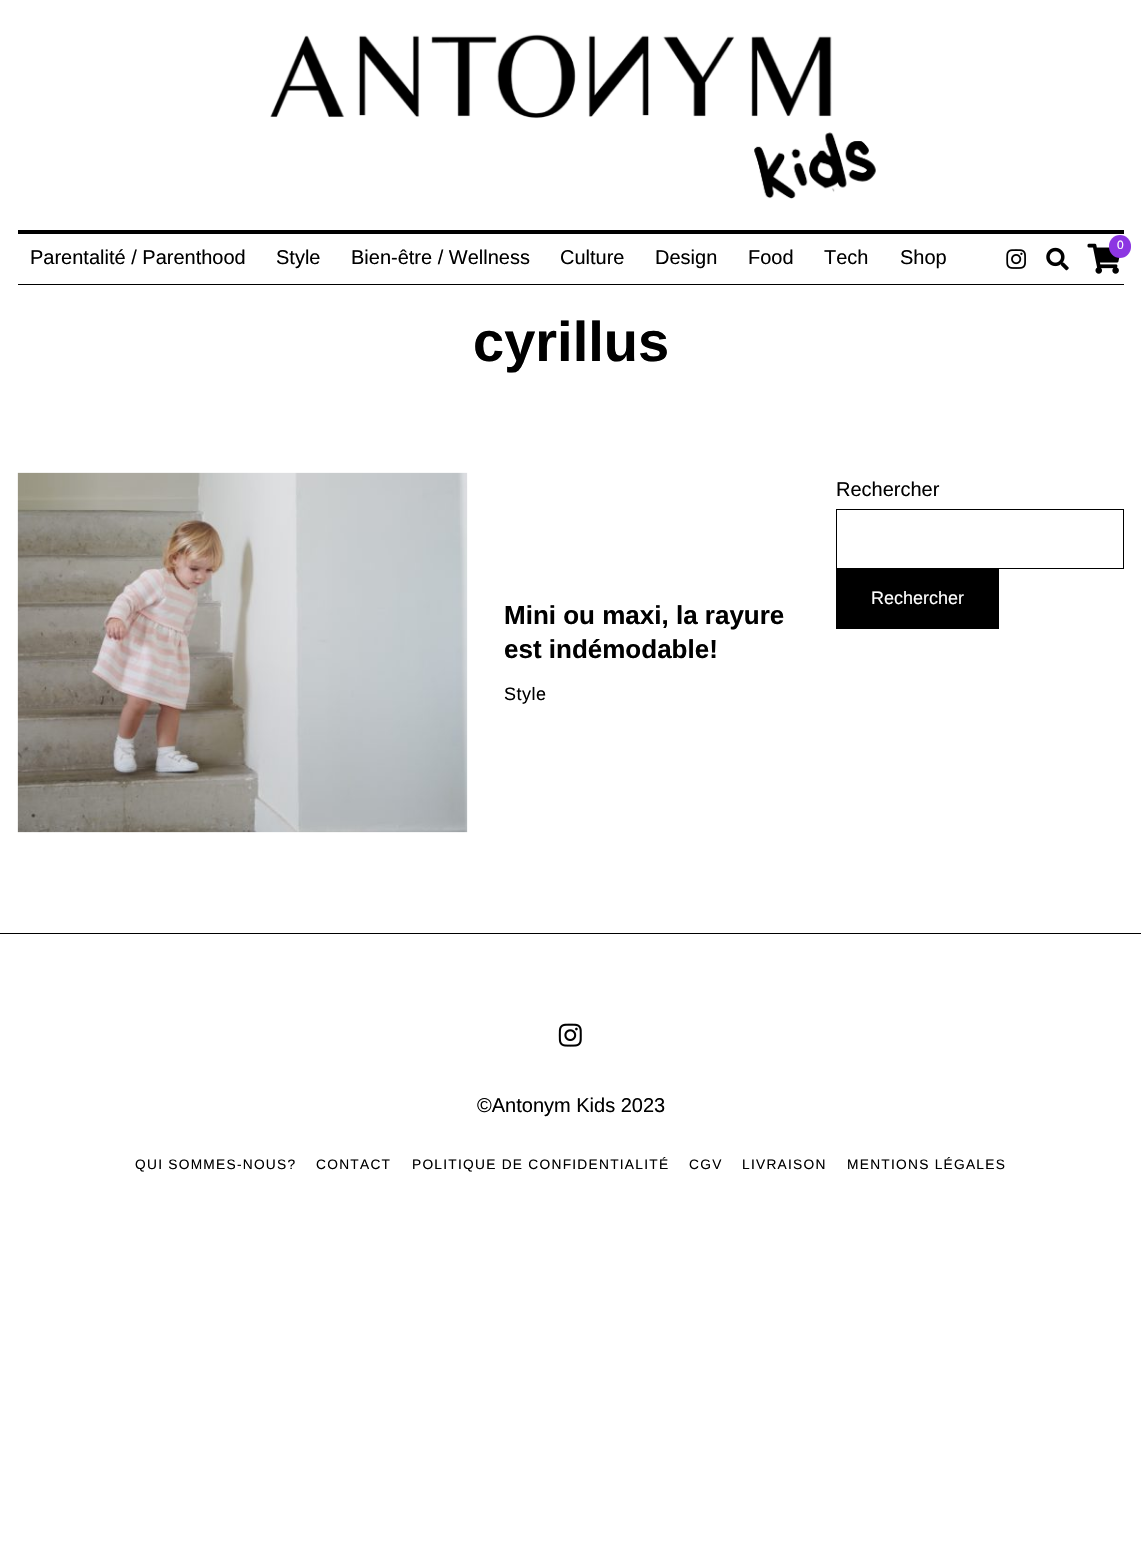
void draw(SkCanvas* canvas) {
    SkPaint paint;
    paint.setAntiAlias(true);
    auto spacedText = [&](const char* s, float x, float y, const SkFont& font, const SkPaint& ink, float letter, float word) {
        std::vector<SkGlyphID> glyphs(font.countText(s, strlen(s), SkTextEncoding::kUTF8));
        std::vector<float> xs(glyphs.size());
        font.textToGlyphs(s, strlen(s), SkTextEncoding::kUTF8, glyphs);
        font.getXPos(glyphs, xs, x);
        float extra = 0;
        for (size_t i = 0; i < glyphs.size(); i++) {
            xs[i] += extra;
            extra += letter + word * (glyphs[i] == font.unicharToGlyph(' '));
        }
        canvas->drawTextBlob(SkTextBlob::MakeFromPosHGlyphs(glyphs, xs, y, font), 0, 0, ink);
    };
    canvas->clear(0xFFFFFFFF);
    canvas->drawImageRect(SkImages::DeferredFromEncodedData(SkData::MakeFromFileName("img1.png")), SkRect::MakeXYWH(270, 34, 606, 165), SkSamplingOptions());
    paint.setColor(0xFF000000);
    canvas->drawRect(SkRect::MakeXYWH(18, 230, 1106, 4), paint);
    canvas->drawRect(SkRect::MakeXYWH(18, 284, 1106, 1), paint);
    canvas->drawImageRect(SkImages::DeferredFromEncodedData(SkData::MakeFromFileName("img2.png")), SkRect::MakeXYWH(1087, 243, 33, 31), SkSamplingOptions());
    paint.setColor(0xFF8C36E2);
    canvas->drawRoundRect(SkRect::MakeXYWH(1109, 235, 22, 23), 11, 11, paint);
    SkFont font1(fontMgr->matchFamilyStyle("Liberation Sans", SkFontStyle::Normal()), 12);
    font1.setSubpixel(true);
    paint.setColor(0xFFFFFFFF);
    canvas->drawString("0", 1117, 249, font1, paint);
    canvas->drawImageRect(SkImages::DeferredFromEncodedData(SkData::MakeFromFileName("img3.png")), SkRect::MakeXYWH(1006, 249, 20, 20), SkSamplingOptions());
    canvas->drawImageRect(SkImages::DeferredFromEncodedData(SkData::MakeFromFileName("img4.png")), SkRect::MakeXYWH(1046, 247, 23, 24), SkSamplingOptions());
    SkFont font2(fontMgr->matchFamilyStyle("Liberation Sans", SkFontStyle::Normal()), 20);
    font2.setSubpixel(true);
    paint.setColor(0xFF000000);
    canvas->drawString("Parentalité / Parenthood", 30, 264, font2, paint);
    canvas->drawString("Style", 276, 264, font2, paint);
    canvas->drawString("Bien-être / Wellness", 351, 264, font2, paint);
    canvas->drawString("Culture", 560, 264, font2, paint);
    canvas->drawString("Design", 655, 264, font2, paint);
    canvas->drawString("Food", 748, 264, font2, paint);
    canvas->drawString("Tech", 824, 264, font2, paint);
    canvas->drawString("Shop", 900, 264, font2, paint);
    SkFont font3(fontMgr->matchFamilyStyle("Liberation Sans", SkFontStyle::Bold()), 56);
    font3.setSubpixel(true);
    canvas->drawString("cyrillus", 473, 361, font3, paint);
    canvas->drawString("Rechercher", 836, 496, font2, paint);
    paint.setStyle(SkPaint::kStroke_Style);
    paint.setStrokeWidth(1);
    canvas->drawRect(SkRect::MakeXYWH(836.5f, 509.5f, 287, 59), paint);
    paint.setStyle(SkPaint::kFill_Style);
    canvas->drawRect(SkRect::MakeXYWH(836, 569, 163, 60), paint);
    SkFont font4(fontMgr->matchFamilyStyle("Liberation Sans", SkFontStyle::Normal()), 18);
    font4.setSubpixel(true);
    paint.setColor(0xFFFFFFFF);
    canvas->drawString("Rechercher", 871, 604, font4, paint);
    canvas->drawImageRect(SkImages::DeferredFromEncodedData(SkData::MakeFromFileName("img5.png")), SkRect::MakeXYWH(17, 472, 451, 361), SkSamplingOptions());
    SkFont font5(fontMgr->matchFamilyStyle("Liberation Sans", SkFontStyle::Bold()), 26);
    font5.setSubpixel(true);
    paint.setColor(0xFF000000);
    canvas->drawString("Mini ou maxi, la rayure", 504, 624, font5, paint);
    canvas->drawString("est indémodable!", 504, 658, font5, paint);
    spacedText("Style", 504, 700, font4, paint, 0.5f, 0);
    canvas->drawRect(SkRect::MakeXYWH(0, 933, 1141, 1), paint);
    canvas->drawImageRect(SkImages::DeferredFromEncodedData(SkData::MakeFromFileName("img6.png")), SkRect::MakeXYWH(558, 1023, 24, 24), SkSamplingOptions());
    canvas->drawString("©Antonym Kids 2023", 477, 1112, font2, paint);
    SkFont font6(fontMgr->matchFamilyStyle("Liberation Sans", SkFontStyle::Normal()), 13.75f);
    font6.setSubpixel(true);
    spacedText("QUI SOMMES-NOUS?", 135, 1169, font6, paint, 1.25f, 0);
    spacedText("CONTACT", 316, 1169, font6, paint, 1.25f, 0);
    spacedText("POLITIQUE DE CONFIDENTIALITÉ", 412, 1169, font6, paint, 1.25f, 0);
    spacedText("CGV", 689, 1169, font6, paint, 1.25f, 0);
    spacedText("LIVRAISON", 742, 1169, font6, paint, 1.25f, 0);
    spacedText("MENTIONS LÉGALES", 847, 1169, font6, paint, 1.25f, 0);
}
